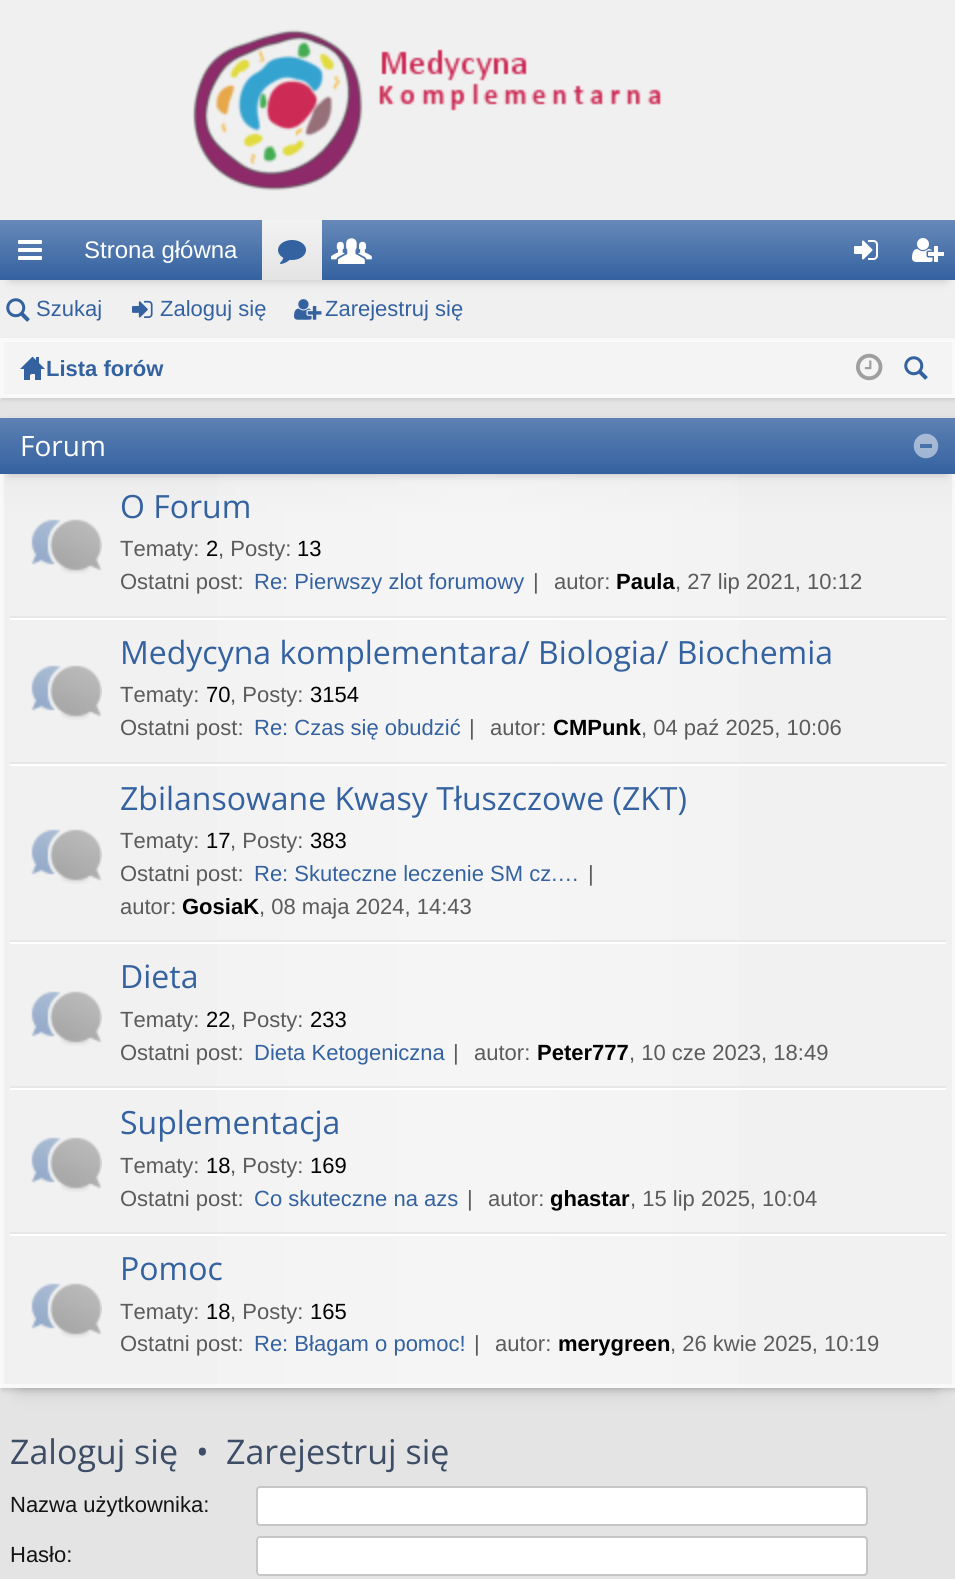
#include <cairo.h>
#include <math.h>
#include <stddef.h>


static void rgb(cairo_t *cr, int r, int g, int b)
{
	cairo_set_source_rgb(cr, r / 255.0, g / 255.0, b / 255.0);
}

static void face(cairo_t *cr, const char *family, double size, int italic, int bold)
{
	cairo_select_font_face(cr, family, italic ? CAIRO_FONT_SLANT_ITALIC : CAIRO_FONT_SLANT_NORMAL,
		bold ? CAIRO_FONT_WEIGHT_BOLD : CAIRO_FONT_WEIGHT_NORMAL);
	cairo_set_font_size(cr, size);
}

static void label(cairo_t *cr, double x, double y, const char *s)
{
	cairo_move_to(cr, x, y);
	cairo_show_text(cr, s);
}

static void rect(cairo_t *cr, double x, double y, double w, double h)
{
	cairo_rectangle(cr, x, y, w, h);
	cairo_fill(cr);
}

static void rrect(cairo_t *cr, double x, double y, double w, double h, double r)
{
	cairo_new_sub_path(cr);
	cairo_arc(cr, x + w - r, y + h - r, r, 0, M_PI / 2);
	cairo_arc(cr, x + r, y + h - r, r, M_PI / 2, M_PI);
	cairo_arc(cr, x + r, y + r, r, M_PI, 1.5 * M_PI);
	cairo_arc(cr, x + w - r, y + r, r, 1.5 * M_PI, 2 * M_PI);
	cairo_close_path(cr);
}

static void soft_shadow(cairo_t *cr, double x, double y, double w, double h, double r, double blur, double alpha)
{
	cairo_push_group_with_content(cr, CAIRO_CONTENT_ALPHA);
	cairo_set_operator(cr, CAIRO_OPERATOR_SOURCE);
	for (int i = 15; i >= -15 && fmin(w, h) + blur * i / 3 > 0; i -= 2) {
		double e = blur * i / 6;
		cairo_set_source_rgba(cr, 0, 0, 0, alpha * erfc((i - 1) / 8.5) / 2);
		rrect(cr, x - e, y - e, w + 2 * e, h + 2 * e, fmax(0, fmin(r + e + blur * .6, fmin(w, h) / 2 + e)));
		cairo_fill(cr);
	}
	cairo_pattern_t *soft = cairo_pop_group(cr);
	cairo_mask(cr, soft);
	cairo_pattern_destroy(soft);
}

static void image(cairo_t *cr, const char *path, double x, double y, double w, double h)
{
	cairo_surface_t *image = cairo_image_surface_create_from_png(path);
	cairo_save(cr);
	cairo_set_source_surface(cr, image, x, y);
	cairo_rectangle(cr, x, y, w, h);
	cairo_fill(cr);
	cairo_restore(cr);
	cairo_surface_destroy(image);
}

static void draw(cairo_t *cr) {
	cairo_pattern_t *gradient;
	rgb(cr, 240, 240, 240);
	cairo_paint(cr);
	image(cr, "image0.png", 192, 29, 470, 162);
	rgb(cr, 0, 0, 0);
	soft_shadow(cr, 10, 240, 936, 40, 0, 5, 0.2);
	gradient = cairo_pattern_create_linear(478, 220, 478, 280);
	cairo_pattern_add_color_stop_rgba(gradient, 0, 0.404, 0.537, 0.722, 1);
	cairo_pattern_add_color_stop_rgba(gradient, 1, 0.204, 0.384, 0.627, 1);
	cairo_set_source(cr, gradient);
	cairo_pattern_destroy(gradient);
	rect(cr, 0, 220, 955, 60);
	image(cr, "image1.png", 18, 240, 24, 20);
	face(cr, "Liberation Sans", 24, 0, 0);
	rgb(cr, 255, 255, 255);
	label(cr, 84, 258, "Strona główna");
	gradient = cairo_pattern_create_linear(292, 220, 292, 280);
	cairo_pattern_add_color_stop_rgba(gradient, 0, 0.949, 0.949, 0.949, 1);
	cairo_pattern_add_color_stop_rgba(gradient, 1, 0.894, 0.894, 0.894, 1);
	cairo_set_source(cr, gradient);
	cairo_pattern_destroy(gradient);
	rect(cr, 262, 220, 60, 60);
	image(cr, "image2.png", 278, 240, 28, 24);
	image(cr, "image3.png", 331, 238, 41, 26);
	image(cr, "image4.png", 854, 240, 24, 20);
	image(cr, "image5.png", 912, 238, 32, 24);
	image(cr, "image6.png", 6, 298, 24, 24);
	face(cr, "Liberation Sans", 22, 0, 0);
	rgb(cr, 52, 98, 160);
	label(cr, 36, 316, "Szukaj");
	image(cr, "image7.png", 132, 300, 21, 18);
	label(cr, 160, 316, "Zaloguj się");
	image(cr, "image8.png", 294, 299, 28, 21);
	label(cr, 325, 316, "Zarejestruj się");
	rgb(cr, 228, 228, 228);
	rect(cr, 0, 398, 955, 1181);
	rgb(cr, 0, 0, 0);
	soft_shadow(cr, 2, 340, 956, 60, 0, 2, 0.1);
	rgb(cr, 244, 244, 244);
	cairo_rectangle(cr, 3, 341, 950, 54);
	cairo_fill_preserve(cr);
	rgb(cr, 250, 250, 250);
	cairo_stroke(cr);
	cairo_rectangle(cr, 1, 339, 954, 58);
	rgb(cr, 249, 249, 249);
	cairo_stroke(cr);
	image(cr, "image10.png", 30, 374, 2, 1);
	image(cr, "image9.png", 20, 356, 25, 24);
	face(cr, "Liberation Sans", 22, 0, 1);
	rgb(cr, 52, 98, 160);
	label(cr, 46, 376, "Lista forów");
	image(cr, "image11.png", 856, 353, 27, 28);
	image(cr, "image12.png", 904, 356, 24, 24);
	rgb(cr, 0, 0, 0);
	soft_shadow(cr, 20, 458, 916, 930, 0, 10, 0.2);
	soft_shadow(cr, 2, 420, 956, 970, 0, 3, 0.15);
	gradient = cairo_pattern_create_linear(478, 420, 478, 1386);
	cairo_pattern_add_color_stop_rgba(gradient, 0, 0.918, 0.918, 0.918, 1);
	cairo_pattern_add_color_stop_rgba(gradient, 0.02, 0.91, 0.91, 0.91, 1);
	cairo_pattern_add_color_stop_rgba(gradient, 0.1, 0.945, 0.945, 0.945, 1);
	cairo_set_source(cr, gradient);
	cairo_pattern_destroy(gradient);
	rect(cr, 2, 474, 952, 912);
	gradient = cairo_pattern_create_linear(2, 903, 954, 903);
	cairo_pattern_add_color_stop_rgba(gradient, 0, 1, 1, 1, 0);
	cairo_pattern_add_color_stop_rgba(gradient, 0.5, 1, 1, 1, 0.3);
	cairo_pattern_add_color_stop_rgba(gradient, 1, 1, 1, 1, 0);
	cairo_set_source(cr, gradient);
	cairo_pattern_destroy(gradient);
	rect(cr, 217, 474, 522, 912);
	cairo_rectangle(cr, 3, 421, 950, 964);
	cairo_set_source_rgba(cr, 1, 1, 1, 0.5);
	cairo_stroke(cr);
	cairo_rectangle(cr, 1, 419, 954, 968);
	rgb(cr, 249, 249, 249);
	cairo_stroke(cr);
	rgb(cr, 0, 0, 0);
	soft_shadow(cr, 10, 438, 936, 36, 0, 5, 0.2);
	gradient = cairo_pattern_create_linear(478, 418, 478, 474);
	cairo_pattern_add_color_stop_rgba(gradient, 0, 0.365, 0.506, 0.702, 1);
	cairo_pattern_add_color_stop_rgba(gradient, 1, 0.204, 0.384, 0.627, 1);
	cairo_set_source(cr, gradient);
	cairo_pattern_destroy(gradient);
	rect(cr, 0, 418, 955, 56);
	face(cr, "Open Sans", 28, 0, 0);
	rgb(cr, 255, 255, 255);
	label(cr, 20, 456, "Forum");
	image(cr, "image13.png", 913, 433, 26, 26);
	rgb(cr, 231, 231, 231);
	rect(cr, 10, 616, 936, 2);
	image(cr, "image14.png", 31, 519, 71, 55);
	face(cr, "Open Sans", 32, 0, 0);
	rgb(cr, 52, 98, 160);
	label(cr, 120, 518, "O Forum");
	face(cr, "Liberation Sans", 22, 0, 0);
	rgb(cr, 91, 91, 91);
	label(cr, 120, 556, "Tematy:");
	rgb(cr, 0, 0, 0);
	label(cr, 206, 556, "2");
	rgb(cr, 91, 91, 91);
	label(cr, 218, 556, ", Posty:");
	rgb(cr, 0, 0, 0);
	label(cr, 297, 556, "13");
	rgb(cr, 91, 91, 91);
	label(cr, 120, 589, "Ostatni post:");
	rgb(cr, 52, 98, 160);
	label(cr, 254, 589, "Re: Pierwszy zlot forumowy");
	rgb(cr, 91, 91, 91);
	label(cr, 533, 589, "|");
	label(cr, 554, 589, "autor:");
	face(cr, "Liberation Sans", 22, 0, 1);
	rgb(cr, 0, 0, 0);
	label(cr, 616, 589, "Paula");
	face(cr, "Liberation Sans", 22, 0, 0);
	rgb(cr, 91, 91, 91);
	label(cr, 675, 589, ", 27 lip 2021, 10:12");
	rgb(cr, 255, 255, 255);
	rect(cr, 10, 618, 936, 2);
	rgb(cr, 231, 231, 231);
	rect(cr, 10, 762, 936, 2);
	image(cr, "image14.png", 31, 665, 71, 55);
	face(cr, "Open Sans", 32, 0, 0);
	rgb(cr, 52, 98, 160);
	label(cr, 120, 664, "Medycyna komplementara/ Biologia/ Biochemia");
	face(cr, "Liberation Sans", 22, 0, 0);
	rgb(cr, 91, 91, 91);
	label(cr, 120, 702, "Tematy:");
	rgb(cr, 0, 0, 0);
	label(cr, 206, 702, "70");
	rgb(cr, 91, 91, 91);
	label(cr, 230, 702, ", Posty:");
	rgb(cr, 0, 0, 0);
	label(cr, 310, 702, "3154");
	rgb(cr, 91, 91, 91);
	label(cr, 120, 735, "Ostatni post:");
	rgb(cr, 52, 98, 160);
	label(cr, 254, 735, "Re: Czas się obudzić");
	rgb(cr, 91, 91, 91);
	label(cr, 469, 735, "|");
	label(cr, 490, 735, "autor:");
	face(cr, "Liberation Sans", 22, 0, 1);
	rgb(cr, 0, 0, 0);
	label(cr, 553, 735, "CMPunk");
	face(cr, "Liberation Sans", 22, 0, 0);
	rgb(cr, 91, 91, 91);
	label(cr, 641, 735, ", 04 paź 2025, 10:06");
	rgb(cr, 255, 255, 255);
	rect(cr, 10, 764, 936, 2);
	rgb(cr, 231, 231, 231);
	rect(cr, 10, 940, 936, 2);
	image(cr, "image14.png", 31, 829, 71, 55);
	face(cr, "Open Sans", 32, 0, 0);
	rgb(cr, 52, 98, 160);
	label(cr, 120, 810, "Zbilansowane Kwasy Tłuszczowe (ZKT)");
	face(cr, "Liberation Sans", 22, 0, 0);
	rgb(cr, 91, 91, 91);
	label(cr, 120, 848, "Tematy:");
	rgb(cr, 0, 0, 0);
	label(cr, 206, 848, "17");
	rgb(cr, 91, 91, 91);
	label(cr, 230, 848, ", Posty:");
	rgb(cr, 0, 0, 0);
	label(cr, 310, 848, "383");
	rgb(cr, 91, 91, 91);
	label(cr, 120, 881, "Ostatni post:");
	rgb(cr, 52, 98, 160);
	label(cr, 254, 881, "Re: Skuteczne leczenie SM cz.…");
	rgb(cr, 91, 91, 91);
	label(cr, 588, 881, "|");
	label(cr, 120, 914, "autor:");
	face(cr, "Liberation Sans", 22, 0, 1);
	rgb(cr, 0, 0, 0);
	label(cr, 182, 914, "GosiaK");
	face(cr, "Liberation Sans", 22, 0, 0);
	rgb(cr, 91, 91, 91);
	label(cr, 259, 914, ", 08 maja 2024, 14:43");
	rgb(cr, 255, 255, 255);
	rect(cr, 10, 942, 936, 2);
	rgb(cr, 231, 231, 231);
	rect(cr, 10, 1086, 936, 2);
	image(cr, "image14.png", 31, 991, 71, 55);
	face(cr, "Open Sans", 32, 0, 0);
	rgb(cr, 52, 98, 160);
	label(cr, 120, 988, "Dieta");
	face(cr, "Liberation Sans", 22, 0, 0);
	rgb(cr, 91, 91, 91);
	label(cr, 120, 1027, "Tematy:");
	rgb(cr, 0, 0, 0);
	label(cr, 206, 1027, "22");
	rgb(cr, 91, 91, 91);
	label(cr, 230, 1027, ", Posty:");
	rgb(cr, 0, 0, 0);
	label(cr, 310, 1027, "233");
	rgb(cr, 91, 91, 91);
	label(cr, 120, 1060, "Ostatni post:");
	rgb(cr, 52, 98, 160);
	label(cr, 254, 1060, "Dieta Ketogeniczna");
	rgb(cr, 91, 91, 91);
	label(cr, 453, 1060, "|");
	label(cr, 474, 1060, "autor:");
	face(cr, "Liberation Sans", 22, 0, 1);
	rgb(cr, 0, 0, 0);
	label(cr, 537, 1060, "Peter777");
	face(cr, "Liberation Sans", 22, 0, 0);
	rgb(cr, 91, 91, 91);
	label(cr, 629, 1060, ", 10 cze 2023, 18:49");
	rgb(cr, 255, 255, 255);
	rect(cr, 10, 1088, 936, 2);
	rgb(cr, 231, 231, 231);
	rect(cr, 10, 1232, 936, 2);
	image(cr, "image14.png", 31, 1137, 71, 55);
	face(cr, "Open Sans", 32, 0, 0);
	rgb(cr, 52, 98, 160);
	label(cr, 120, 1134, "Suplementacja");
	face(cr, "Liberation Sans", 22, 0, 0);
	rgb(cr, 91, 91, 91);
	label(cr, 120, 1173, "Tematy:");
	rgb(cr, 0, 0, 0);
	label(cr, 206, 1173, "18");
	rgb(cr, 91, 91, 91);
	label(cr, 230, 1173, ", Posty:");
	rgb(cr, 0, 0, 0);
	label(cr, 310, 1173, "169");
	rgb(cr, 91, 91, 91);
	label(cr, 120, 1206, "Ostatni post:");
	rgb(cr, 52, 98, 160);
	label(cr, 254, 1206, "Co skuteczne na azs");
	rgb(cr, 91, 91, 91);
	label(cr, 467, 1206, "|");
	label(cr, 488, 1206, "autor:");
	face(cr, "Liberation Sans", 22, 0, 1);
	rgb(cr, 0, 0, 0);
	label(cr, 550, 1206, "ghastar");
	face(cr, "Liberation Sans", 22, 0, 0);
	rgb(cr, 91, 91, 91);
	label(cr, 630, 1206, ", 15 lip 2025, 10:04");
	rgb(cr, 255, 255, 255);
	rect(cr, 10, 1234, 936, 2);
	image(cr, "image14.png", 31, 1283, 71, 55);
	face(cr, "Open Sans", 32, 0, 0);
	rgb(cr, 52, 98, 160);
	label(cr, 120, 1280, "Pomoc");
	face(cr, "Liberation Sans", 22, 0, 0);
	rgb(cr, 91, 91, 91);
	label(cr, 120, 1319, "Tematy:");
	rgb(cr, 0, 0, 0);
	label(cr, 206, 1319, "18");
	rgb(cr, 91, 91, 91);
	label(cr, 230, 1319, ", Posty:");
	rgb(cr, 0, 0, 0);
	label(cr, 310, 1319, "165");
	rgb(cr, 91, 91, 91);
	label(cr, 120, 1351, "Ostatni post:");
	rgb(cr, 52, 98, 160);
	label(cr, 254, 1351, "Re: Błagam o pomoc!");
	rgb(cr, 91, 91, 91);
	label(cr, 474, 1351, "|");
	label(cr, 495, 1351, "autor:");
	face(cr, "Liberation Sans", 22, 0, 1);
	rgb(cr, 0, 0, 0);
	label(cr, 558, 1351, "merygreen");
	face(cr, "Liberation Sans", 22, 0, 0);
	rgb(cr, 91, 91, 91);
	label(cr, 670, 1351, ", 26 kwie 2025, 10:19");
	face(cr, "Open Sans", 34, 0, 0);
	rgb(cr, 60, 77, 101);
	label(cr, 10, 1464, "Zaloguj się");
	label(cr, 196, 1464, "•");
	label(cr, 226, 1464, "Zarejestruj się");
	face(cr, "Liberation Sans", 22, 0, 0);
	rgb(cr, 20, 20, 20);
	label(cr, 10, 1512, "Nazwa użytkownika:");
	rgb(cr, 255, 255, 255);
	rrect(cr, 257, 1487, 610, 38, 3);
	cairo_fill_preserve(cr);
	rgb(cr, 198, 198, 198);
	cairo_stroke(cr);
	rgb(cr, 20, 20, 20);
	label(cr, 10, 1562, "Hasło:");
	rgb(cr, 255, 255, 255);
	rrect(cr, 257, 1537, 610, 38, 3);
	cairo_fill_preserve(cr);
	rgb(cr, 198, 198, 198);
	cairo_stroke(cr);
}

int main(void) {
	cairo_surface_t *surface = cairo_image_surface_create(CAIRO_FORMAT_RGB24, 955, 1579);
	cairo_t *cr = cairo_create(surface);
	cairo_font_options_t *options = cairo_font_options_create();
	cairo_font_options_set_hint_metrics(options, CAIRO_HINT_METRICS_OFF);
	cairo_font_options_set_hint_style(options, CAIRO_HINT_STYLE_NONE);
	cairo_set_font_options(cr, options);
	cairo_set_miter_limit(cr, 4);
	draw(cr);
	cairo_surface_write_to_png(surface, "render.png");
	cairo_font_options_destroy(options);
	cairo_destroy(cr);
	cairo_surface_destroy(surface);
	return 0;
}
